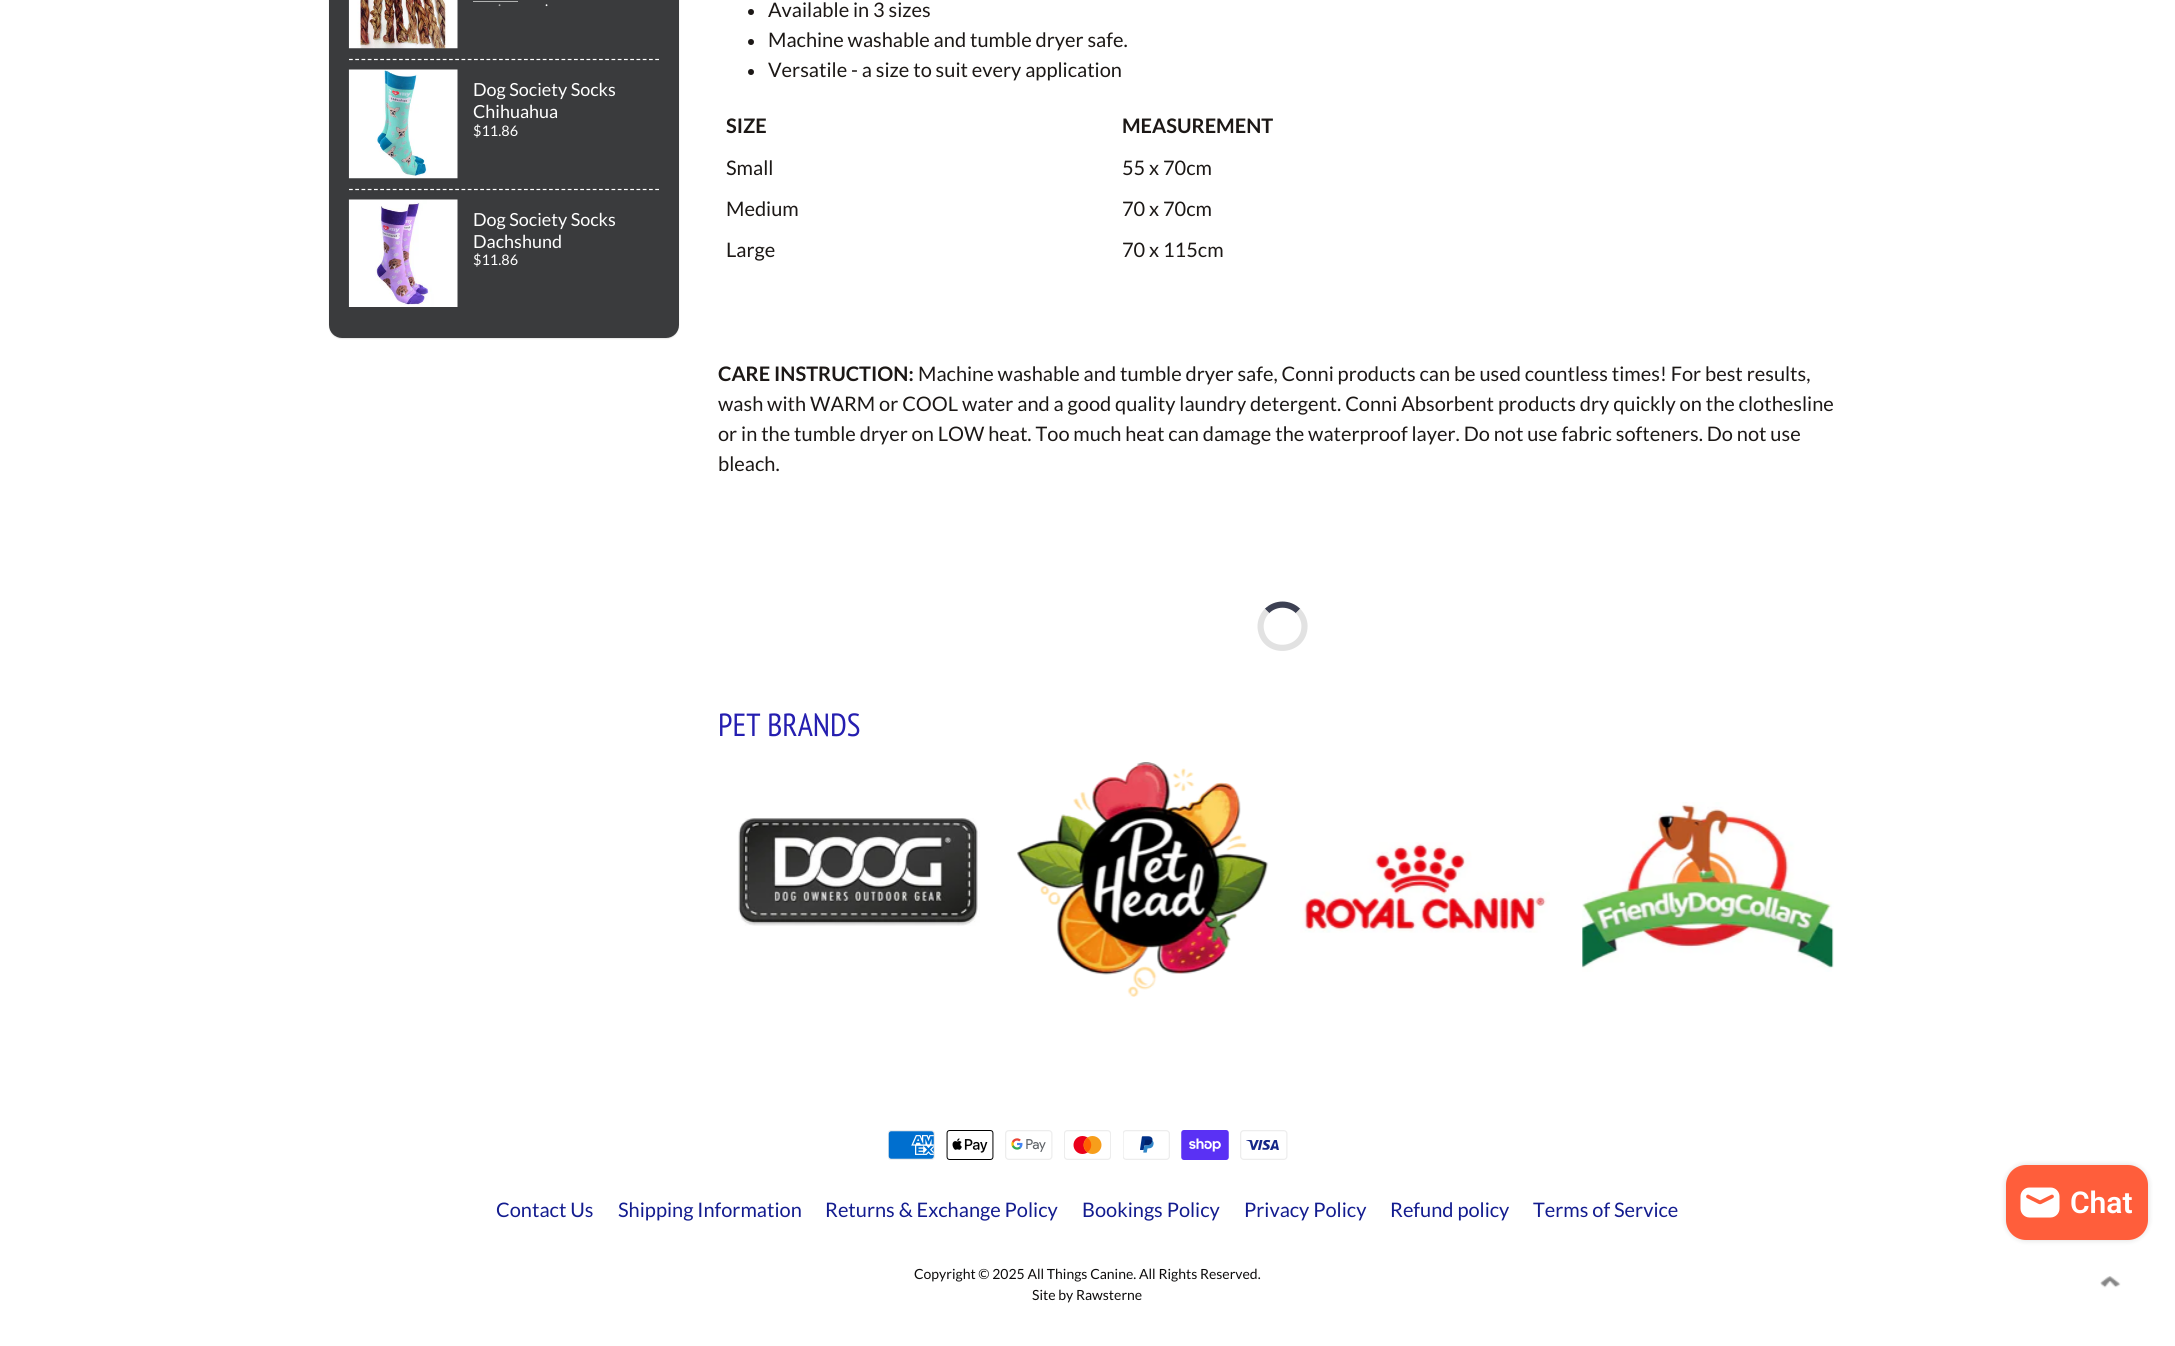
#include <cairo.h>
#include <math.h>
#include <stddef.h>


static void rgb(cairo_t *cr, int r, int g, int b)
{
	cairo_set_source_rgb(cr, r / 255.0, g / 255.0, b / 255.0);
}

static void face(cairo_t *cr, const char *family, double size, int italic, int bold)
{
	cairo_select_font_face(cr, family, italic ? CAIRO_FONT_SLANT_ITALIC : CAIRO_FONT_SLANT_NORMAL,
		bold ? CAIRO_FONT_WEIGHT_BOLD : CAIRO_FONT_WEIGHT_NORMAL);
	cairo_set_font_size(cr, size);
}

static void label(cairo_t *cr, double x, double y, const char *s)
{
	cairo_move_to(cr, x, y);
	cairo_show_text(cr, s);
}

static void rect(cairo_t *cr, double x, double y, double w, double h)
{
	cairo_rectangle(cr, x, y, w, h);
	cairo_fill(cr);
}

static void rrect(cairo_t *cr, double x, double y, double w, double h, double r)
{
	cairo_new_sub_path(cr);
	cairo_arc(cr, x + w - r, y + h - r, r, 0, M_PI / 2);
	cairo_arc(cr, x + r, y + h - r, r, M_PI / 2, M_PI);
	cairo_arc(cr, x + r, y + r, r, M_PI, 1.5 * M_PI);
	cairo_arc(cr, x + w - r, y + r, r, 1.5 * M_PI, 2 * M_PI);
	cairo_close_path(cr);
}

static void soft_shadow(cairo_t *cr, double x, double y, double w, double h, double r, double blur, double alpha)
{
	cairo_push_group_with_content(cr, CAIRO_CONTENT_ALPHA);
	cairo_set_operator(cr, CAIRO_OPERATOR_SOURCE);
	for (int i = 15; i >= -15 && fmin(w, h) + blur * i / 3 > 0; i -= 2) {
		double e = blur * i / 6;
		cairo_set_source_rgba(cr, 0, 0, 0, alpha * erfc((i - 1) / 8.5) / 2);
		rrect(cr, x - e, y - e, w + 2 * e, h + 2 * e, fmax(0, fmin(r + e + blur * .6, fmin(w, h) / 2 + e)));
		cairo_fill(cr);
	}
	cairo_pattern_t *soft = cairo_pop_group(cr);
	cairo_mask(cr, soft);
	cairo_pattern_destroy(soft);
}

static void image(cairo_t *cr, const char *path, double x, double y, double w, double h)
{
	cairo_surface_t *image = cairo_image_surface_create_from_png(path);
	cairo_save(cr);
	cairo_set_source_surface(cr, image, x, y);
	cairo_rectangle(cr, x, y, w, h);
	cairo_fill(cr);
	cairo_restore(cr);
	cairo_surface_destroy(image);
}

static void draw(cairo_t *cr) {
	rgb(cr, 255, 255, 255);
	cairo_paint(cr);
	rgb(cr, 0, 0, 0);
	soft_shadow(cr, 329, -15, 350, 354, 13, 0.5, 0.1);
	rgb(cr, 58, 59, 61);
	rrect(cr, 329, -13, 350, 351, 13);
	cairo_fill(cr);
	image(cr, "image0.png", 348, 0, 110, 49);
	face(cr, "Lato", 14.5, 0, 0);
	rgb(cr, 176, 177, 177);
	label(cr, 498, 6, ".");
	rect(cr, 473, 1, 45, 1);
	rgb(cr, 255, 255, 255);
	label(cr, 545, 6, ".");
	cairo_new_path(cr);
	cairo_move_to(cr, 349, 59.5);
	cairo_line_to(cr, 659, 59.5);
	cairo_set_line_width(cr, 1.2);
	cairo_set_dash(cr, (double[]){3.75, 2.5}, 2, 0);
	cairo_stroke(cr);
	image(cr, "image1.png", 348, 69, 110, 110);
	face(cr, "Lato", 18, 0, 0);
	label(cr, 473, 96, "Dog Society Socks");
	label(cr, 473, 118, "Chihuahua");
	face(cr, "Lato", 14.5, 0, 0);
	label(cr, 473, 136, "$11.86");
	cairo_new_path(cr);
	cairo_move_to(cr, 349, 189.5);
	cairo_line_to(cr, 659, 189.5);
	cairo_stroke(cr);
	image(cr, "image2.png", 348, 199, 110, 108);
	face(cr, "Lato", 18, 0, 0);
	label(cr, 473, 226, "Dog Society Socks");
	label(cr, 473, 248, "Dachshund");
	face(cr, "Lato", 14.5, 0, 0);
	label(cr, 473, 265, "$11.86");
	rgb(cr, 28, 24, 22);
	cairo_new_path(cr);
	cairo_arc(cr, 751, 12, 3, 0, 2 * M_PI);
	cairo_fill(cr);
	face(cr, "Lato", 20, 0, 0);
	label(cr, 768, 17, "Available in 3 sizes");
	cairo_new_path(cr);
	cairo_arc(cr, 751, 42, 3, 0, 2 * M_PI);
	cairo_fill(cr);
	label(cr, 768, 47, "Machine washable and tumble dryer safe.");
	cairo_new_path(cr);
	cairo_arc(cr, 751, 72, 3, 0, 2 * M_PI);
	cairo_fill(cr);
	label(cr, 768, 77, "Versatile - a size to suit every application");
	face(cr, "Lato", 20, 0, 1);
	label(cr, 726, 133, "SIZE");
	label(cr, 1122, 133, "MEASUREMENT");
	face(cr, "Lato", 20, 0, 0);
	label(cr, 726, 175, "Small");
	label(cr, 1122, 175, "55 x 70cm");
	label(cr, 726, 216, "Medium");
	label(cr, 1122, 216, "70 x 70cm");
	label(cr, 726, 257, "Large");
	label(cr, 1122, 257, "70 x 115cm");
	face(cr, "Lato", 20, 0, 1);
	label(cr, 718, 381, "CARE INSTRUCTION:");
	face(cr, "Lato", 20, 0, 0);
	label(cr, 918, 381, "Machine washable and tumble dryer safe, Conni products can be used countless times! For best results,");
	label(cr, 718, 411, "wash with WARM or COOL water and a good quality laundry detergent. Conni Absorbent products dry quickly on the clothesline");
	label(cr, 718, 441, "or in the tumble dryer on LOW heat. Too much heat can damage the waterproof layer. Do not use fabric softeners. Do not use");
	label(cr, 718, 471, "bleach.");
	cairo_new_path(cr);
	cairo_move_to(cr, 1267, 611);
	cairo_curve_to(cr, 1275.5, 602.5, 1289.5, 602.5, 1298, 611);
	rgb(cr, 61, 65, 83);
	cairo_set_line_width(cr, 6.2);
	cairo_set_dash(cr, NULL, 0, 0);
	cairo_stroke(cr);
	cairo_new_path(cr);
	cairo_move_to(cr, 1298, 611);
	cairo_curve_to(cr, 1302, 615, 1304.5, 620.5, 1304.5, 626);
	cairo_curve_to(cr, 1304.5, 652.5, 1266, 656, 1261, 630.5);
	cairo_curve_to(cr, 1259.5, 623.5, 1262, 616, 1267, 611);
	rgb(cr, 226, 226, 226);
	cairo_stroke(cr);
	face(cr, "PT Sans Narrow", 32, 0, 0);
	rgb(cr, 37, 30, 176);
	label(cr, 718, 736, "PET BRANDS");
	image(cr, "image3.png", 738, 818, 242, 108);
	image(cr, "image4.png", 1017, 762, 252, 235);
	image(cr, "image5.png", 1300, 842, 250, 91);
	image(cr, "image6.png", 1582, 802, 252, 170);
	image(cr, "image7.png", 888, 1130, 47, 30);
	image(cr, "image8.png", 946, 1130, 48, 30);
	image(cr, "image9.png", 1005, 1130, 48, 30);
	image(cr, "image10.png", 1064, 1130, 47, 30);
	image(cr, "image11.png", 1123, 1130, 47, 30);
	image(cr, "image12.png", 1181, 1130, 48, 30);
	image(cr, "image13.png", 1240, 1130, 48, 30);
	face(cr, "Lato", 20, 0, 0);
	rgb(cr, 19, 28, 143);
	label(cr, 496, 1217, "Contact Us");
	label(cr, 618, 1217, "Shipping Information");
	label(cr, 825, 1217, "Returns & Exchange Policy");
	label(cr, 1082, 1217, "Bookings Policy");
	label(cr, 1244, 1217, "Privacy Policy");
	label(cr, 1390, 1217, "Refund policy");
	label(cr, 1533, 1217, "Terms of Service");
	face(cr, "Lato", 14, 0, 0);
	rgb(cr, 13, 12, 12);
	label(cr, 914, 1279, "Copyright © 2025 All Things Canine. All Rights Reserved.");
	label(cr, 1032, 1300, "Site by Rawsterne");
	image(cr, "image14.png", 2100, 1276, 21, 12);
	rgb(cr, 0, 0, 0);
	soft_shadow(cr, 2006, 1165, 142, 75, 20, 3, 0.15);
	rgb(cr, 255, 94, 59);
	rrect(cr, 2006, 1165, 142, 75, 20);
	cairo_fill(cr);
	image(cr, "image15.png", 2020, 1187, 40, 31);
	face(cr, "Roboto SemiBold", 30, 0, 0);
	rgb(cr, 255, 255, 255);
	label(cr, 2070, 1213, "Chat");
}

int main(void) {
	cairo_surface_t *surface = cairo_image_surface_create(CAIRO_FORMAT_RGB24, 2175, 1346);
	cairo_t *cr = cairo_create(surface);
	cairo_font_options_t *options = cairo_font_options_create();
	cairo_font_options_set_hint_metrics(options, CAIRO_HINT_METRICS_OFF);
	cairo_font_options_set_hint_style(options, CAIRO_HINT_STYLE_NONE);
	cairo_set_font_options(cr, options);
	cairo_set_miter_limit(cr, 4);
	draw(cr);
	cairo_surface_write_to_png(surface, "render.png");
	cairo_font_options_destroy(options);
	cairo_destroy(cr);
	cairo_surface_destroy(surface);
	return 0;
}
